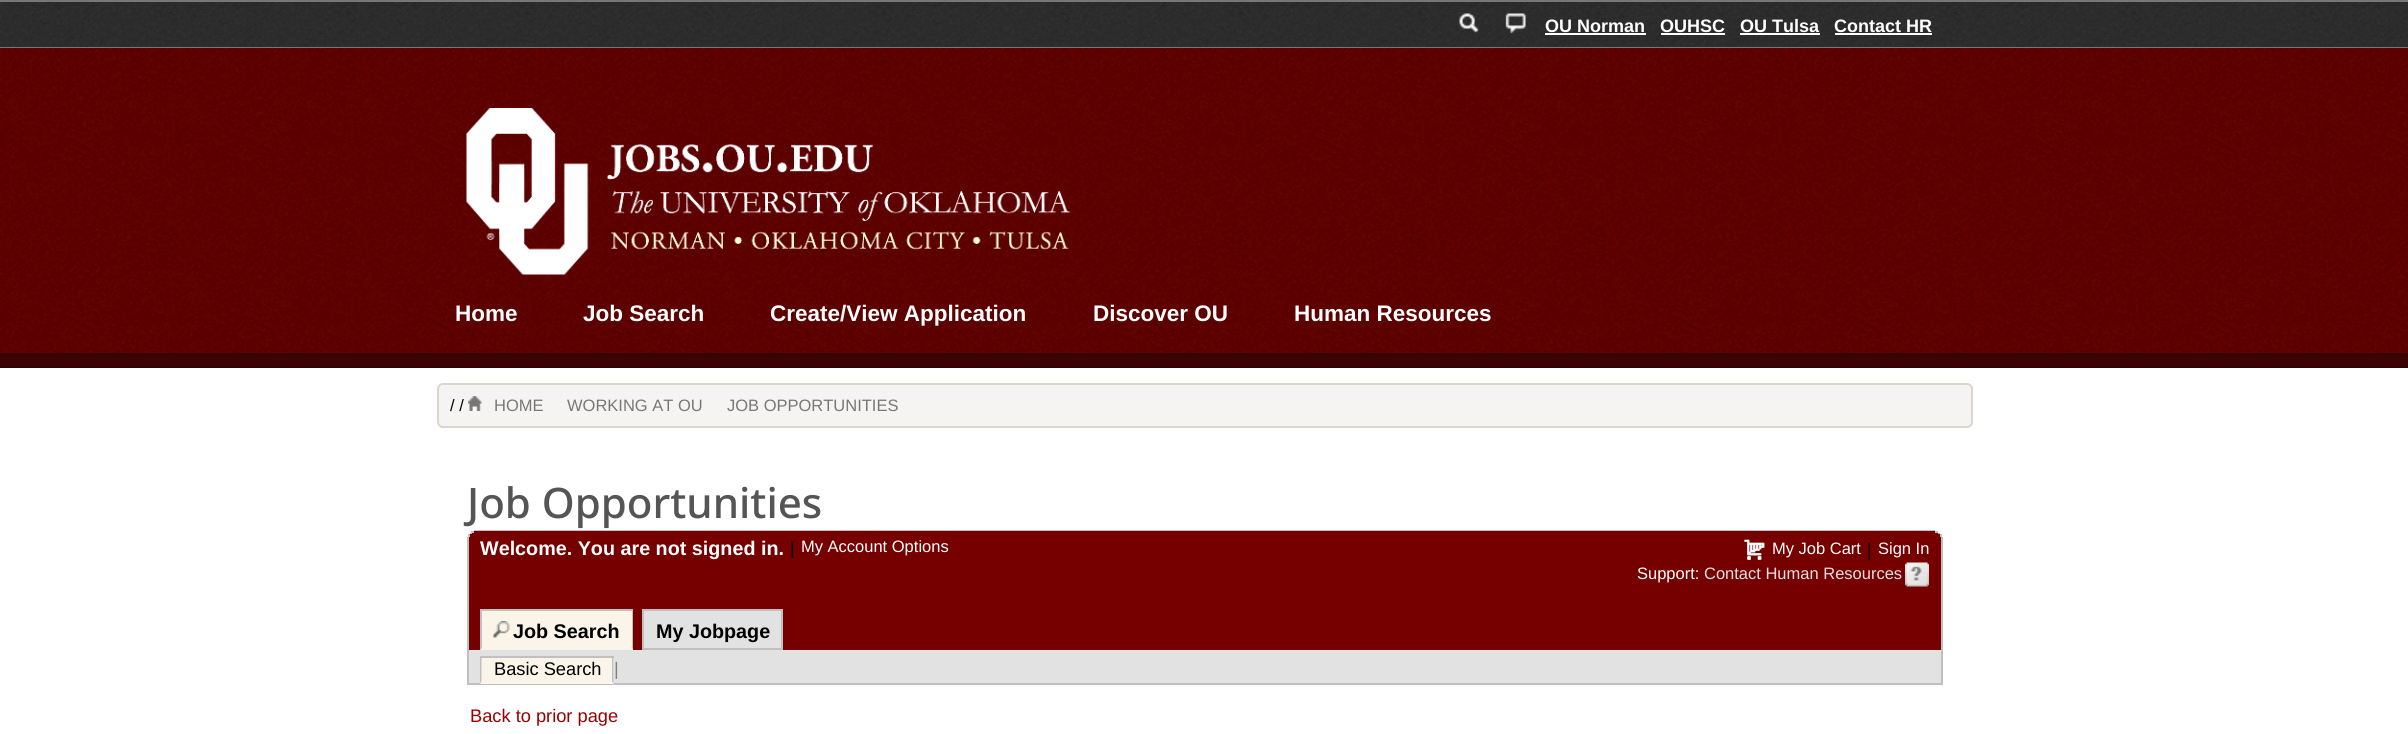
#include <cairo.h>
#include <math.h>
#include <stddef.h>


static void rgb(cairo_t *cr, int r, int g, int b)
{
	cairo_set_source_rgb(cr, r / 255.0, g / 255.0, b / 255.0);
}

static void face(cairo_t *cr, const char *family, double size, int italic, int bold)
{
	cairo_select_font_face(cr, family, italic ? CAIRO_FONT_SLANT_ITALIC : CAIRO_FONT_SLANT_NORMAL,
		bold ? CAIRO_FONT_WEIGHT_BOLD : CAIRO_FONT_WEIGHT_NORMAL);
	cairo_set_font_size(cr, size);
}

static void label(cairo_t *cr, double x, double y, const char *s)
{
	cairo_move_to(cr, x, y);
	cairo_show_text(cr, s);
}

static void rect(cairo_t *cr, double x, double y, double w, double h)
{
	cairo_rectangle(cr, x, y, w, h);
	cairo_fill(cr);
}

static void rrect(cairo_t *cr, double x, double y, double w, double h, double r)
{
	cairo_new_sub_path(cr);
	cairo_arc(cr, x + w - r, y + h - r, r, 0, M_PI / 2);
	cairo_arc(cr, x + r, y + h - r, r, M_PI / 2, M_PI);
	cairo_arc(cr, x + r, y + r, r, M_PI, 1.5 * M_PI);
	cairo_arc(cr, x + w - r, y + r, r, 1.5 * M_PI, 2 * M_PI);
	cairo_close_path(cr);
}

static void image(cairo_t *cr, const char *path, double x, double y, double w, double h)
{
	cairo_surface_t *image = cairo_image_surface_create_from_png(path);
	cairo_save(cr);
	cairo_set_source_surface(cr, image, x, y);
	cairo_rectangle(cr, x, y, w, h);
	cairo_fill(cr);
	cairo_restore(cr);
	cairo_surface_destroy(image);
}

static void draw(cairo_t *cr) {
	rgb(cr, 255, 255, 255);
	cairo_paint(cr);
	image(cr, "image0.png", 0, 2, 2408, 45);
	rgb(cr, 119, 119, 119);
	rect(cr, 0, 47, 2408, 1);
	rect(cr, 0, 0, 2408, 2);
	image(cr, "image1.png", 1459, 13, 20, 20);
	image(cr, "image2.png", 1505, 13, 21, 21);
	face(cr, "Liberation Sans", 18, 0, 1);
	rgb(cr, 255, 255, 255);
	label(cr, 1545, 32, "OU Norman");
	rect(cr, 1545, 33, 101, 2);
	label(cr, 1660, 32, "OUHSC");
	rect(cr, 1661, 33, 64, 2);
	label(cr, 1740, 32, "OU Tulsa");
	rect(cr, 1740, 33, 80, 2);
	label(cr, 1834, 32, "Contact HR");
	rect(cr, 1835, 33, 97, 2);
	image(cr, "image3.png", 0, 48, 2408, 305);
	image(cr, "image4.png", 466, 108, 604, 167);
	face(cr, "Liberation Sans", 22.5, 0, 1);
	label(cr, 455, 321, "Home");
	label(cr, 583, 321, "Job Search");
	label(cr, 770, 321, "Create/View Application");
	label(cr, 1093, 321, "Discover OU");
	label(cr, 1294, 321, "Human Resources");
	rgb(cr, 62, 2, 4);
	rect(cr, 0, 355, 2408, 11);
	rgb(cr, 48, 2, 4);
	rect(cr, 0, 353, 2408, 2);
	rect(cr, 0, 366, 2408, 2);
	rgb(cr, 245, 244, 242);
	rrect(cr, 438, 384, 1534, 43, 5);
	cairo_fill_preserve(cr);
	rgb(cr, 218, 214, 206);
	cairo_stroke(cr);
	face(cr, "Liberation Sans", 16.5, 0, 0);
	rgb(cr, 0, 0, 0);
	label(cr, 450, 411, "/ /");
	image(cr, "image5.png", 468, 396, 14, 15);
	rgb(cr, 119, 119, 119);
	label(cr, 494, 411, "HOME");
	label(cr, 567, 411, "WORKING AT OU");
	label(cr, 727, 411, "JOB OPPORTUNITIES");
	face(cr, "Noto Sans Medium", 42, 0, 0);
	rgb(cr, 85, 85, 85);
	label(cr, 467, 518, "Job Opportunities");
	rgb(cr, 192, 192, 192);
	rect(cr, 474, 530, 1461, 1);
	rgb(cr, 118, 0, 0);
	rect(cr, 471, 531, 1467, 2);
	rgb(cr, 192, 192, 192);
	rect(cr, 1935, 531, 3, 2);
	rect(cr, 471, 531, 3, 2);
	rgb(cr, 118, 0, 0);
	rect(cr, 470, 533, 1470, 1);
	rgb(cr, 192, 192, 192);
	rect(cr, 1938, 533, 2, 1);
	rect(cr, 470, 533, 2, 1);
	rgb(cr, 118, 0, 0);
	rect(cr, 468, 534, 1473, 3);
	rgb(cr, 192, 192, 192);
	rect(cr, 1940, 534, 2, 3);
	rect(cr, 468, 534, 2, 3);
	rgb(cr, 118, 0, 0);
	rect(cr, 469, 537, 1472, 113);
	rgb(cr, 192, 192, 192);
	rect(cr, 1941, 537, 2, 147);
	rect(cr, 467, 537, 2, 113);
	face(cr, "Liberation Sans", 19.75, 0, 1);
	rgb(cr, 255, 255, 255);
	label(cr, 480, 555, "Welcome. You are not signed in.");
	face(cr, "Liberation Sans", 18.25, 0, 0);
	rgb(cr, 0, 0, 0);
	label(cr, 790, 554, "|");
	face(cr, "Liberation Sans", 16.5, 0, 0);
	rgb(cr, 255, 255, 255);
	label(cr, 801, 552, "My Account Options");
	image(cr, "image6.png", 1744, 539, 21, 21);
	image(cr, "image7.png", 1744, 539, 21, 21);
	label(cr, 1772, 554, "My Job Cart");
	face(cr, "Liberation Sans", 18.25, 0, 0);
	rgb(cr, 0, 0, 0);
	label(cr, 1867, 556, "|");
	face(cr, "Liberation Sans", 16.5, 0, 0);
	rgb(cr, 255, 255, 255);
	label(cr, 1878, 554, "Sign In");
	label(cr, 1637, 579, "Support:");
	rgb(cr, 226, 226, 226);
	label(cr, 1704, 579, "Contact Human Resources");
	image(cr, "image8.png", 1905, 562, 24, 25);
	rgb(cr, 250, 245, 232);
	rect(cr, 480, 611, 153, 39);
	rgb(cr, 192, 192, 192);
	rect(cr, 480, 609, 153, 2);
	cairo_new_path(cr);
	cairo_move_to(cr, 633, 609);
	cairo_line_to(cr, 633, 650);
	cairo_line_to(cr, 632, 648);
	cairo_line_to(cr, 632, 610);
	cairo_close_path(cr);
	cairo_fill(cr);
	cairo_new_path(cr);
	cairo_move_to(cr, 480, 650);
	cairo_line_to(cr, 480, 609);
	cairo_line_to(cr, 482, 610);
	cairo_line_to(cr, 482, 648);
	cairo_close_path(cr);
	cairo_fill(cr);
	image(cr, "image9.png", 493, 621, 18, 17);
	face(cr, "Liberation Sans", 19.75, 0, 1);
	rgb(cr, 0, 0, 0);
	label(cr, 513, 638, "Job Search");
	rgb(cr, 226, 226, 226);
	cairo_rectangle(cr, 643, 610, 139, 39);
	cairo_fill_preserve(cr);
	rgb(cr, 192, 192, 192);
	cairo_stroke(cr);
	rgb(cr, 0, 0, 0);
	label(cr, 656, 638, "My Jobpage");
	rgb(cr, 226, 226, 226);
	rect(cr, 469, 650, 1472, 33);
	rgb(cr, 192, 192, 192);
	rect(cr, 467, 683, 1476, 2);
	rect(cr, 467, 650, 2, 34);
	rgb(cr, 250, 245, 232);
	rect(cr, 480, 658, 134, 26);
	face(cr, "Liberation Sans", 18.25, 0, 0);
	rgb(cr, 0, 0, 0);
	label(cr, 494, 675, "Basic Search");
	rgb(cr, 192, 192, 192);
	rect(cr, 480, 656, 134, 2);
	cairo_new_path(cr);
	cairo_move_to(cr, 613.5, 655.5);
	cairo_line_to(cr, 613.5, 684);
	cairo_line_to(cr, 612, 681);
	cairo_line_to(cr, 612, 657);
	cairo_close_path(cr);
	cairo_fill(cr);
	cairo_new_path(cr);
	cairo_move_to(cr, 480, 684);
	cairo_line_to(cr, 480, 655.5);
	cairo_line_to(cr, 481.5, 657);
	cairo_line_to(cr, 481.5, 681);
	cairo_close_path(cr);
	cairo_fill(cr);
	rgb(cr, 128, 128, 128);
	label(cr, 614, 675, "|");
	rgb(cr, 153, 0, 0);
	label(cr, 470, 722, "Back to prior page");
}

int main(void) {
	cairo_surface_t *surface = cairo_image_surface_create(CAIRO_FORMAT_RGB24, 2408, 734);
	cairo_t *cr = cairo_create(surface);
	cairo_font_options_t *options = cairo_font_options_create();
	cairo_font_options_set_hint_metrics(options, CAIRO_HINT_METRICS_OFF);
	cairo_font_options_set_hint_style(options, CAIRO_HINT_STYLE_NONE);
	cairo_set_font_options(cr, options);
	cairo_set_miter_limit(cr, 4);
	draw(cr);
	cairo_surface_write_to_png(surface, "render.png");
	cairo_font_options_destroy(options);
	cairo_destroy(cr);
	cairo_surface_destroy(surface);
	return 0;
}
